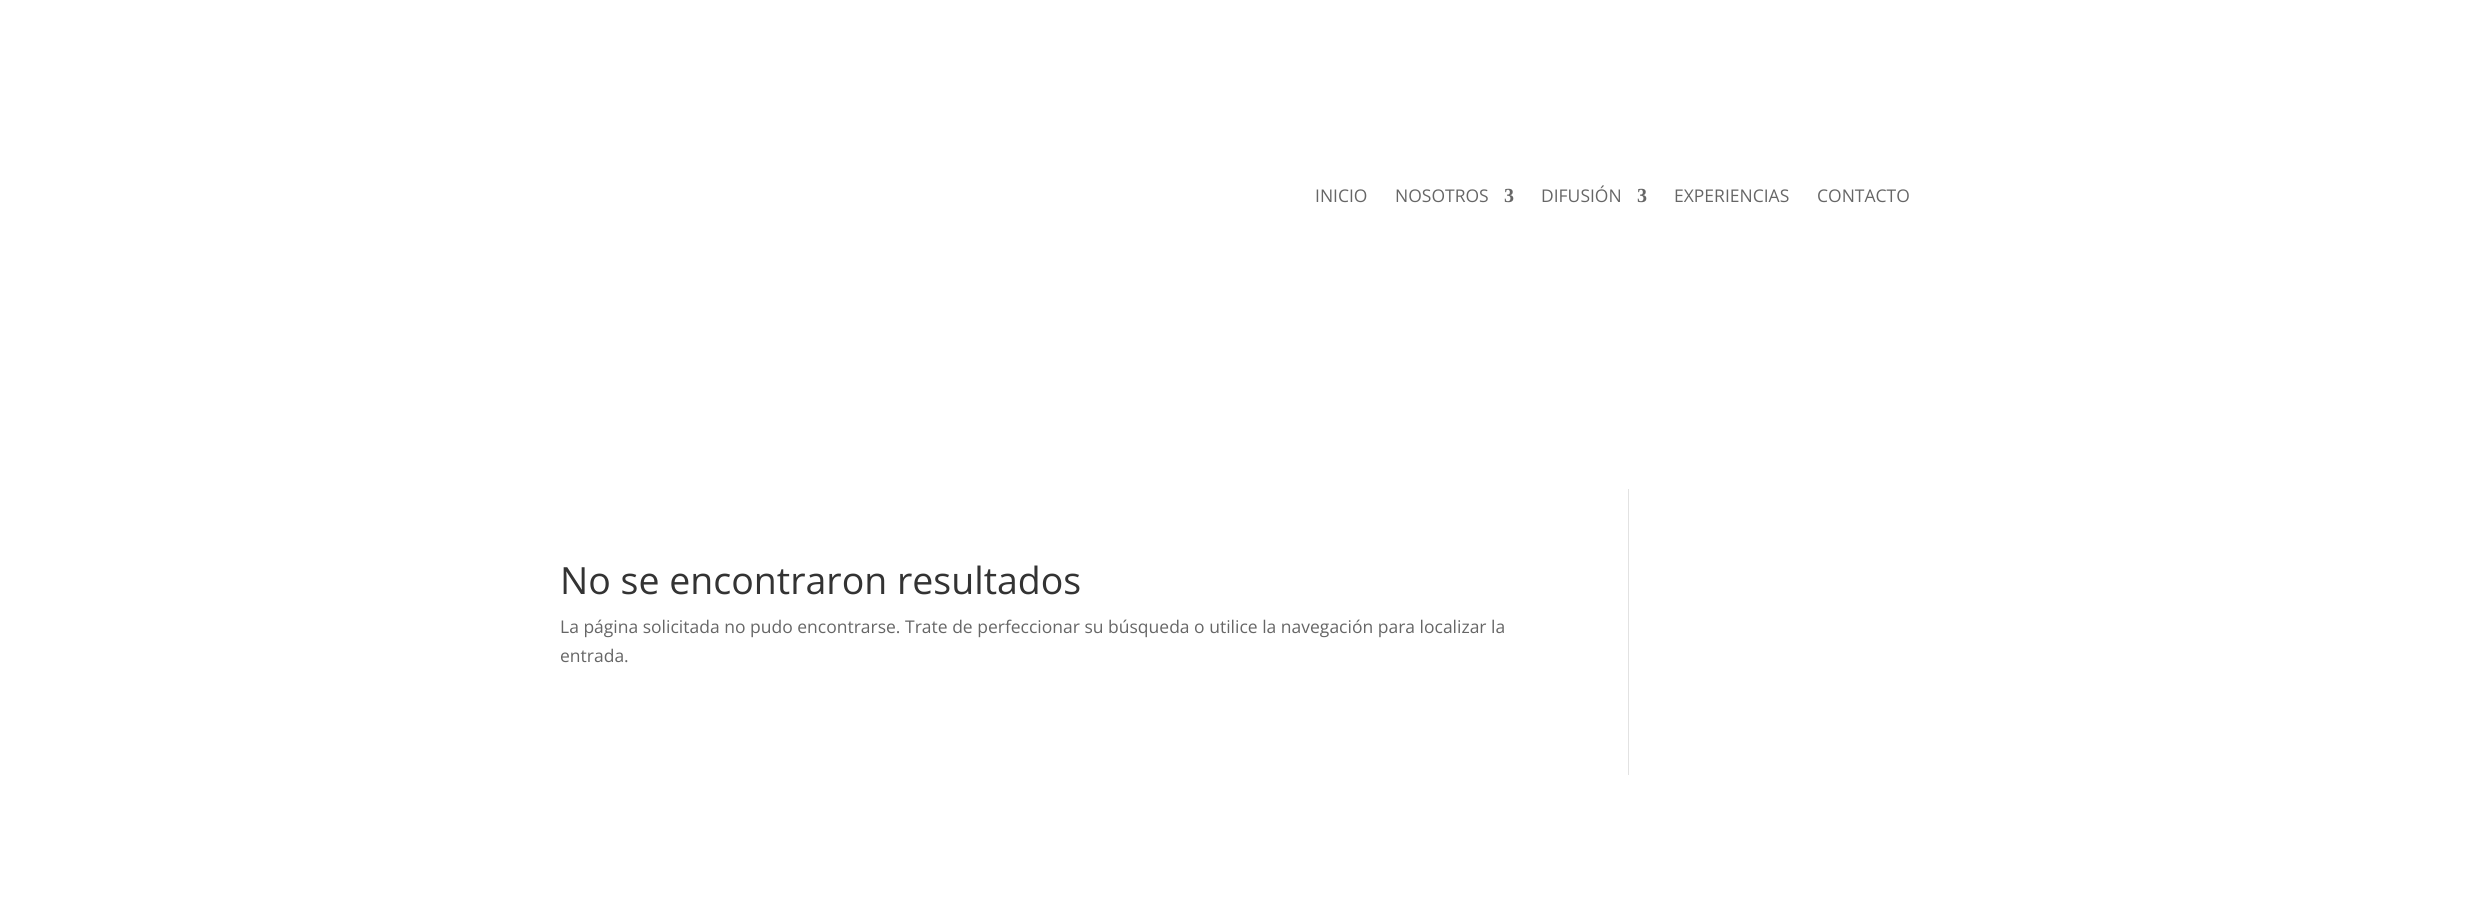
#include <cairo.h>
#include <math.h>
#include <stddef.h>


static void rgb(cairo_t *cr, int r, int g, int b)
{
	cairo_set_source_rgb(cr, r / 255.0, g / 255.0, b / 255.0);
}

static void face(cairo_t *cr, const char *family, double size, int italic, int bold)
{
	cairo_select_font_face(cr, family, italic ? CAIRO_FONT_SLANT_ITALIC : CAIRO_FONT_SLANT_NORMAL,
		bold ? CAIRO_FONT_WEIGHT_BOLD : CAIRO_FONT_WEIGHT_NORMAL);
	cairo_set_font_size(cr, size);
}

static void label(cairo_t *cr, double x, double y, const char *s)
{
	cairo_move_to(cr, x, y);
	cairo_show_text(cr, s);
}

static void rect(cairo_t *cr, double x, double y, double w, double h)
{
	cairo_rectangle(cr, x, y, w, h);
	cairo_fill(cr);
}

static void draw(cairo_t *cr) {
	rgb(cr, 255, 255, 255);
	cairo_paint(cr);
	face(cr, "Open Sans", 17.5, 0, 0);
	rgb(cr, 102, 102, 102);
	label(cr, 1315, 202, "INICIO");
	label(cr, 1395, 202, "NOSOTROS");
	face(cr, "Liberation Serif", 20, 0, 1);
	label(cr, 1504, 202, "3");
	face(cr, "Open Sans", 17.5, 0, 0);
	label(cr, 1541, 202, "DIFUSIÓN");
	face(cr, "Liberation Serif", 20, 0, 1);
	label(cr, 1637, 202, "3");
	face(cr, "Open Sans", 17.5, 0, 0);
	label(cr, 1674, 202, "EXPERIENCIAS");
	label(cr, 1817, 202, "CONTACTO");
	face(cr, "Open Sans", 37.5, 0, 0);
	rgb(cr, 51, 51, 51);
	label(cr, 560, 594, "No se encontraron resultados");
	face(cr, "Open Sans", 17.5, 0, 0);
	rgb(cr, 102, 102, 102);
	label(cr, 560, 633, "La página solicitada no pudo encontrarse. Trate de perfeccionar su búsqueda o utilice la navegación para localizar la");
	label(cr, 560, 662, "entrada.");
	rgb(cr, 226, 226, 226);
	rect(cr, 1628, 489, 1, 286);
}

int main(void) {
	cairo_surface_t *surface = cairo_image_surface_create(CAIRO_FORMAT_RGB24, 2470, 901);
	cairo_t *cr = cairo_create(surface);
	cairo_font_options_t *options = cairo_font_options_create();
	cairo_font_options_set_hint_metrics(options, CAIRO_HINT_METRICS_OFF);
	cairo_font_options_set_hint_style(options, CAIRO_HINT_STYLE_NONE);
	cairo_set_font_options(cr, options);
	cairo_set_miter_limit(cr, 4);
	draw(cr);
	cairo_surface_write_to_png(surface, "render.png");
	cairo_font_options_destroy(options);
	cairo_destroy(cr);
	cairo_surface_destroy(surface);
	return 0;
}
